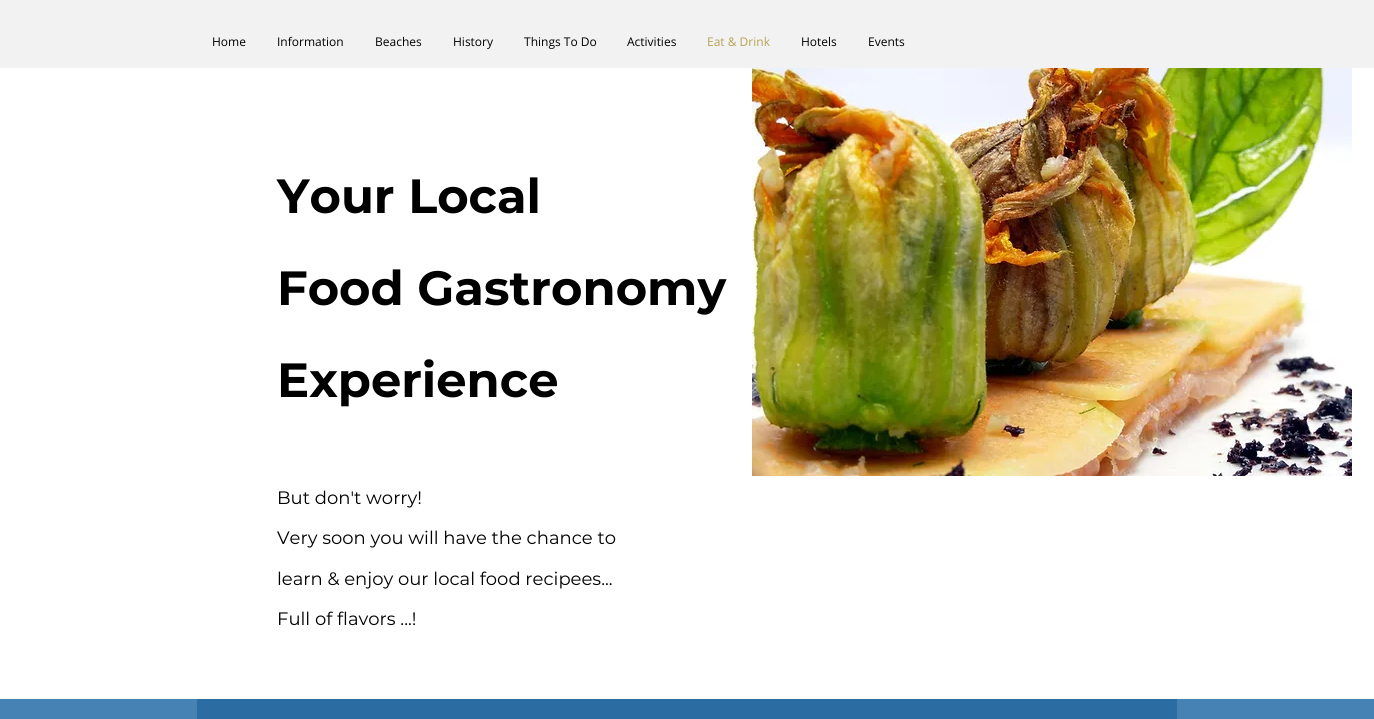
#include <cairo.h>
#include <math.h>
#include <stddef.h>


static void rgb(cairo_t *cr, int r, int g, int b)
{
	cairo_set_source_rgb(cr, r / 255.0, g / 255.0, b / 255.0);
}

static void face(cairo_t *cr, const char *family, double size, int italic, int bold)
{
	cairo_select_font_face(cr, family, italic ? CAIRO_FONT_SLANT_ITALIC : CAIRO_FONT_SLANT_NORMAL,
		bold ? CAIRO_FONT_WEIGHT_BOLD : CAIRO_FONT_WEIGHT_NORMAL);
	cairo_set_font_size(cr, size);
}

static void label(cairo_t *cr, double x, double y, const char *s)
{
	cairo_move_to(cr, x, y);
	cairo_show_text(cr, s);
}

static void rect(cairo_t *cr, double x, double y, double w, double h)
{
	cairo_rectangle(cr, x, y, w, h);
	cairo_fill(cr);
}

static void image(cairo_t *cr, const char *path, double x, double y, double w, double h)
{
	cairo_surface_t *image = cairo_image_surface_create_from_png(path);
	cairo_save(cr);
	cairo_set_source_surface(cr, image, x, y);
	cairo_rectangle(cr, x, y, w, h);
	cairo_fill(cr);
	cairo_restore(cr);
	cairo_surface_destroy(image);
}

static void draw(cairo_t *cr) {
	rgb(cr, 255, 255, 255);
	cairo_paint(cr);
	rgb(cr, 242, 242, 242);
	rect(cr, 0, 0, 1374, 68);
	face(cr, "Open Sans", 12, 0, 0);
	rgb(cr, 0, 0, 0);
	label(cr, 212, 46, "Home");
	label(cr, 277, 46, "Information");
	label(cr, 375, 46, "Beaches");
	label(cr, 453, 46, "History");
	label(cr, 524, 46, "Things To Do");
	label(cr, 627, 46, "Activities");
	rgb(cr, 183, 163, 84);
	label(cr, 707, 46, "Eat & Drink");
	rgb(cr, 0, 0, 0);
	label(cr, 801, 46, "Hotels");
	label(cr, 868, 46, "Events");
	face(cr, "Montserrat", 48, 0, 1);
	label(cr, 277, 213, "Your Local");
	label(cr, 277, 305, "Food Gastronomy");
	label(cr, 277, 397, "Experience");
	face(cr, "Montserrat", 18, 0, 0);
	label(cr, 277, 504, "But don't worry!");
	label(cr, 277, 544, "Very soon you will have the chance to");
	label(cr, 277, 585, "learn & enjoy our local food recipees...");
	label(cr, 277, 625, "Full of flavors ...!");
	image(cr, "image0.png", 752, 68, 600, 408);
	rgb(cr, 70, 130, 180);
	rect(cr, 0, 699, 1374, 20);
	rgb(cr, 43, 108, 163);
	rect(cr, 197, 699, 980, 20);
}

int main(void) {
	cairo_surface_t *surface = cairo_image_surface_create(CAIRO_FORMAT_RGB24, 1374, 719);
	cairo_t *cr = cairo_create(surface);
	cairo_font_options_t *options = cairo_font_options_create();
	cairo_font_options_set_hint_metrics(options, CAIRO_HINT_METRICS_OFF);
	cairo_font_options_set_hint_style(options, CAIRO_HINT_STYLE_NONE);
	cairo_set_font_options(cr, options);
	cairo_set_miter_limit(cr, 4);
	draw(cr);
	cairo_surface_write_to_png(surface, "render.png");
	cairo_font_options_destroy(options);
	cairo_destroy(cr);
	cairo_surface_destroy(surface);
	return 0;
}
